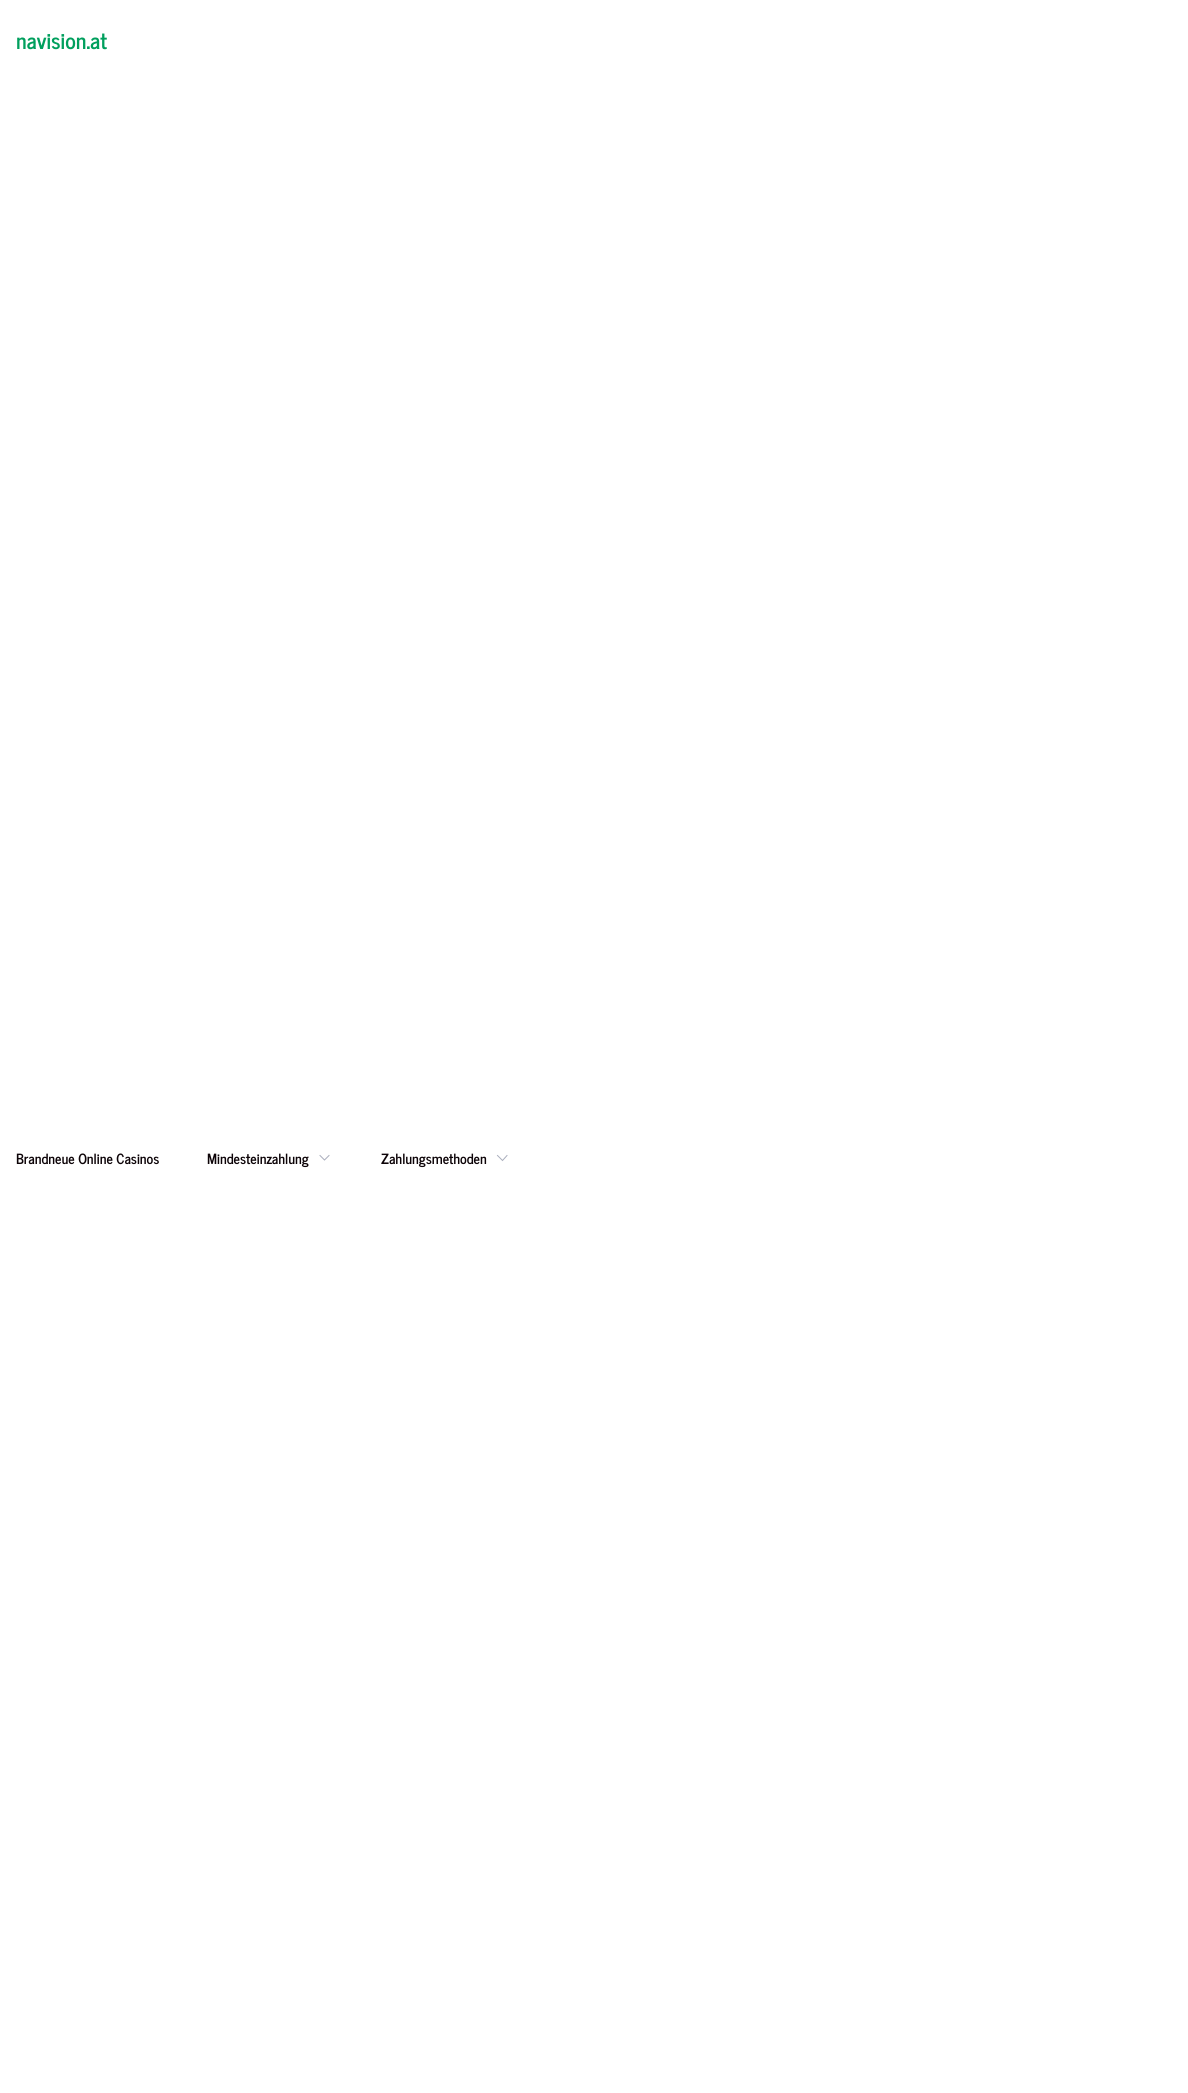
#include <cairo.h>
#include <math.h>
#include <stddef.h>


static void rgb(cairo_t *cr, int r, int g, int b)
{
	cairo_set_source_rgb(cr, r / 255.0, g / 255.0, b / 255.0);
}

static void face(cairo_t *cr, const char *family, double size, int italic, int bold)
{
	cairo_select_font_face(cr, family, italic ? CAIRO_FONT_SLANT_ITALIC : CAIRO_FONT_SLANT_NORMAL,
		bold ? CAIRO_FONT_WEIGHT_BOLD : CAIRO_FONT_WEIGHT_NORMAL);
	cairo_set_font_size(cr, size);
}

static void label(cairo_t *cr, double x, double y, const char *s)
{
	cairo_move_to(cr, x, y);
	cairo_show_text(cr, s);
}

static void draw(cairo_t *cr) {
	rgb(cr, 255, 255, 255);
	cairo_paint(cr);
	face(cr, "News Cycle", 22, 0, 1);
	rgb(cr, 0, 159, 93);
	label(cr, 16, 49, "navision.at");
	face(cr, "News Cycle", 14, 0, 1);
	rgb(cr, 13, 4, 8);
	label(cr, 16, 1164, "Brandneue Online Casinos");
	label(cr, 207, 1164, "Mindesteinzahlung");
	cairo_new_path(cr);
	cairo_move_to(cr, 320, 1155.5);
	cairo_line_to(cr, 324.5, 1160);
	cairo_line_to(cr, 329, 1155.5);
	rgb(cr, 170, 174, 189);
	cairo_set_line_width(cr, 1);
	cairo_set_line_cap(cr, CAIRO_LINE_CAP_SQUARE);
	cairo_stroke(cr);
	rgb(cr, 13, 4, 8);
	label(cr, 381, 1164, "Zahlungsmethoden");
	cairo_new_path(cr);
	cairo_move_to(cr, 497.5, 1155.5);
	cairo_line_to(cr, 502.5, 1160.5);
	cairo_line_to(cr, 507, 1155.5);
	rgb(cr, 170, 174, 189);
	cairo_stroke(cr);
}

int main(void) {
	cairo_surface_t *surface = cairo_image_surface_create(CAIRO_FORMAT_RGB24, 1188, 2093);
	cairo_t *cr = cairo_create(surface);
	cairo_font_options_t *options = cairo_font_options_create();
	cairo_font_options_set_hint_metrics(options, CAIRO_HINT_METRICS_OFF);
	cairo_font_options_set_hint_style(options, CAIRO_HINT_STYLE_NONE);
	cairo_set_font_options(cr, options);
	cairo_set_miter_limit(cr, 4);
	draw(cr);
	cairo_surface_write_to_png(surface, "render.png");
	cairo_font_options_destroy(options);
	cairo_destroy(cr);
	cairo_surface_destroy(surface);
	return 0;
}
